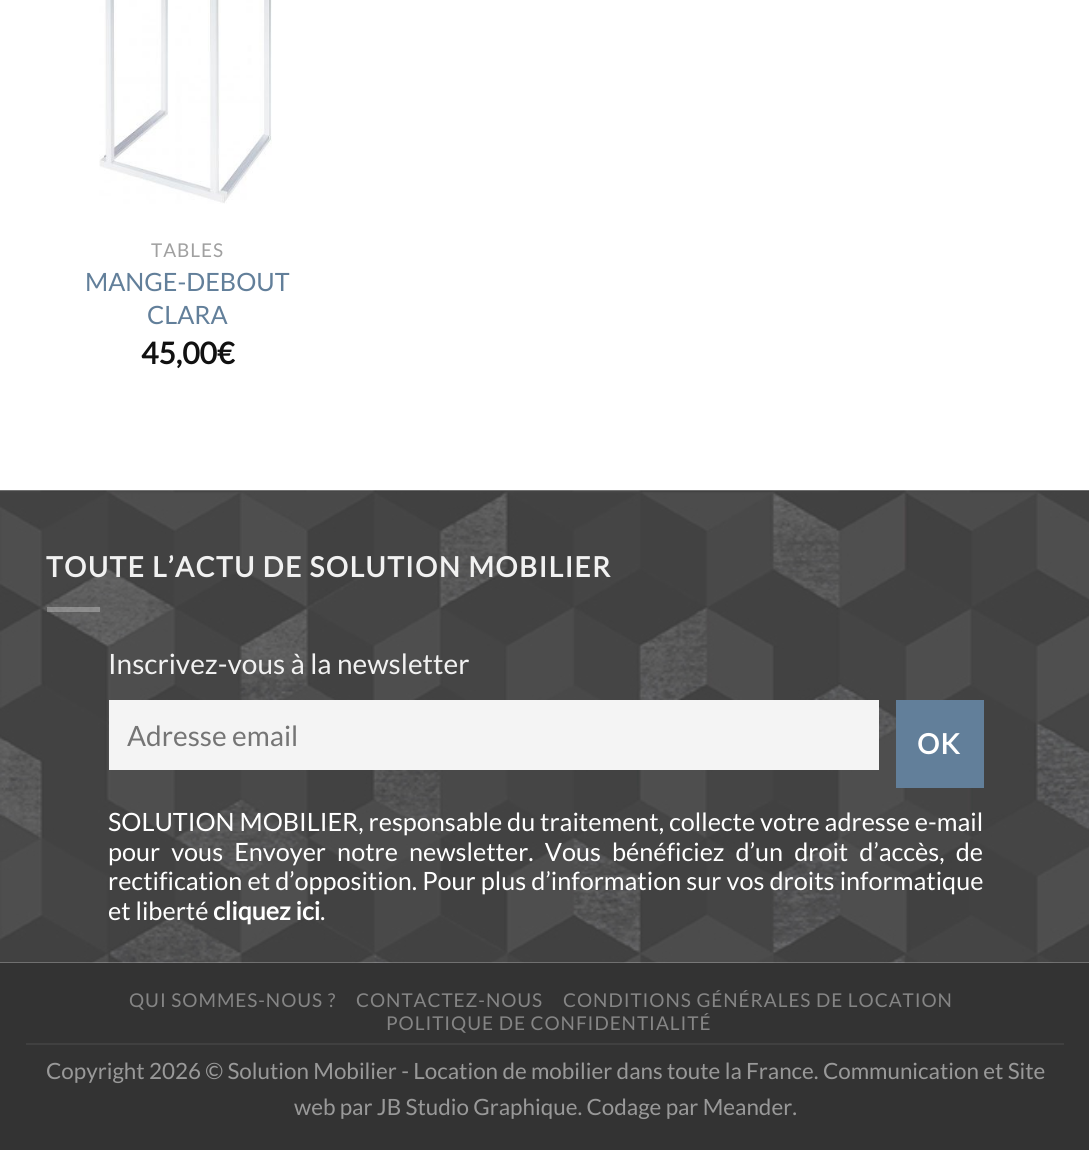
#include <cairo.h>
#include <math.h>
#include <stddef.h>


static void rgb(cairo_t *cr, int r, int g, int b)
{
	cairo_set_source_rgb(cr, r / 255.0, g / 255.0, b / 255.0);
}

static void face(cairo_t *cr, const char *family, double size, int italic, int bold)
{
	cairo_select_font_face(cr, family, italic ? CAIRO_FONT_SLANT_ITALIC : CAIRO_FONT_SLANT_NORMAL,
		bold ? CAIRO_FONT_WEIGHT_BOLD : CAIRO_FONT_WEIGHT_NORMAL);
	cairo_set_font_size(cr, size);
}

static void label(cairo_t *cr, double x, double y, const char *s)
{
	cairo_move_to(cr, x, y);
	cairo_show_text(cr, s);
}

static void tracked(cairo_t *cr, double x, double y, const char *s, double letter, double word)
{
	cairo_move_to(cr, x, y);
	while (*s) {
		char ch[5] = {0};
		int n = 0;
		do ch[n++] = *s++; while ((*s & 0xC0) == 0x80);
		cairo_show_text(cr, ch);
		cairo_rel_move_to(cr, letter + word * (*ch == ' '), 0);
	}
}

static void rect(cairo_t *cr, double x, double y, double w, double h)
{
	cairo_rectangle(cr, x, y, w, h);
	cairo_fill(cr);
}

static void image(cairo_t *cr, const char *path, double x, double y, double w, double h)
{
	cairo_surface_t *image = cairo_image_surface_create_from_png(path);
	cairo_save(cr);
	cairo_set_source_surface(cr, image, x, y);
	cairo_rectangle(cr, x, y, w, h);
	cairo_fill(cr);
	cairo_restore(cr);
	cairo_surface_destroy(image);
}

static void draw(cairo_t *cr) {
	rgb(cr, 255, 255, 255);
	cairo_paint(cr);
	image(cr, "image0.png", 99, 0, 173, 204);
	face(cr, "Lato", 19, 0, 0);
	rgb(cr, 160, 160, 160);
	tracked(cr, 151, 257, "TABLES", 0.95, 0);
	face(cr, "Lato", 25.2, 0, 0);
	rgb(cr, 98, 127, 154);
	label(cr, 85, 291, "MANGE-DEBOUT");
	label(cr, 147, 324, "CLARA");
	face(cr, "Lato", 30, 0, 1);
	rgb(cr, 17, 17, 17);
	label(cr, 141, 364, "45,00€");
	image(cr, "image1.png", 0, 490, 1089, 473);
	cairo_set_source_rgba(cr, 0, 0, 0, 0.05);
	rect(cr, 0, 490, 1089, 2);
	face(cr, "Lato", 28, 0, 1);
	rgb(cr, 241, 241, 241);
	tracked(cr, 46, 577, "TOUTE L’ACTU DE SOLUTION MOBILIER", 1.4, 0);
	cairo_set_source_rgba(cr, 1, 1, 1, 0.3);
	rect(cr, 47, 607, 53, 5);
	face(cr, "Lato", 28, 0, 0);
	rgb(cr, 241, 241, 241);
	label(cr, 108, 674, "Inscrivez-vous à la newsletter");
	rgb(cr, 244, 244, 244);
	rect(cr, 109, 700, 770, 70);
	rgb(cr, 117, 117, 117);
	label(cr, 127, 746, "Adresse email");
	rgb(cr, 98, 127, 154);
	rect(cr, 896, 700, 88, 88);
	face(cr, "Lato", 28, 0, 1);
	rgb(cr, 255, 255, 255);
	tracked(cr, 917, 754, "OK", 1, 0);
	face(cr, "Lato", 25.2, 0, 0);
	label(cr, 108, 831, "SOLUTION MOBILIER, responsable du traitement, collecte votre adresse e-mail");
	tracked(cr, 108, 861, "pour vous Envoyer notre newsletter. Vous bénéficiez d’un droit d’accès, de", 0, 6.25);
	tracked(cr, 108, 890, "rectification et d’opposition. Pour plus d’information sur vos droits informatique", 0, 0.25);
	label(cr, 108, 920, "et liberté");
	face(cr, "Lato", 25.2, 0, 1);
	label(cr, 213, 920, "cliquez ici");
	face(cr, "Lato", 25.2, 0, 0);
	label(cr, 320, 920, ".");
	rgb(cr, 51, 51, 51);
	rect(cr, 0, 963, 1089, 187);
	rgb(cr, 64, 64, 64);
	rect(cr, 26, 1043, 1038, 2);
	face(cr, "Lato", 19, 0, 0);
	rgb(cr, 133, 133, 133);
	tracked(cr, 129, 1007, "QUI SOMMES-NOUS ?", 0.95, 0);
	tracked(cr, 356, 1007, "CONTACTEZ-NOUS", 0.95, 0);
	tracked(cr, 563, 1007, "CONDITIONS GÉNÉRALES DE LOCATION", 0.95, 0);
	tracked(cr, 386, 1030, "POLITIQUE DE CONFIDENTIALITÉ", 0.95, 0);
	face(cr, "Lato", 22.4, 0, 0);
	rgb(cr, 153, 153, 153);
	label(cr, 46, 1079, "Copyright 2026 © Solution Mobilier - Location de mobilier dans toute la France. Communication et Site");
	label(cr, 294, 1115, "web par JB Studio Graphique. Codage par Meander.");
}

int main(void) {
	cairo_surface_t *surface = cairo_image_surface_create(CAIRO_FORMAT_RGB24, 1089, 1150);
	cairo_t *cr = cairo_create(surface);
	cairo_font_options_t *options = cairo_font_options_create();
	cairo_font_options_set_hint_metrics(options, CAIRO_HINT_METRICS_OFF);
	cairo_font_options_set_hint_style(options, CAIRO_HINT_STYLE_NONE);
	cairo_set_font_options(cr, options);
	cairo_set_miter_limit(cr, 4);
	draw(cr);
	cairo_surface_write_to_png(surface, "render.png");
	cairo_font_options_destroy(options);
	cairo_destroy(cr);
	cairo_surface_destroy(surface);
	return 0;
}
